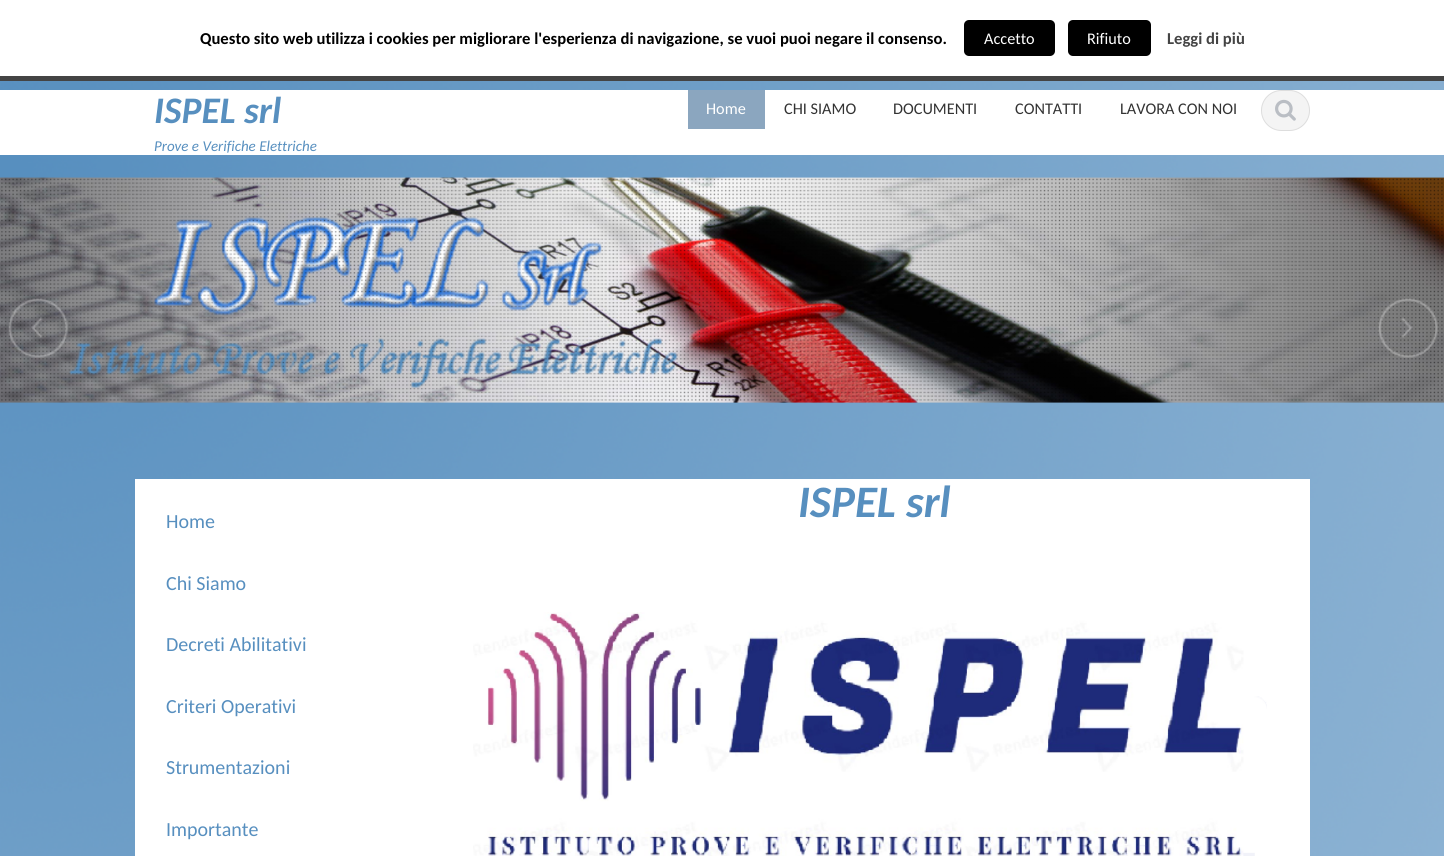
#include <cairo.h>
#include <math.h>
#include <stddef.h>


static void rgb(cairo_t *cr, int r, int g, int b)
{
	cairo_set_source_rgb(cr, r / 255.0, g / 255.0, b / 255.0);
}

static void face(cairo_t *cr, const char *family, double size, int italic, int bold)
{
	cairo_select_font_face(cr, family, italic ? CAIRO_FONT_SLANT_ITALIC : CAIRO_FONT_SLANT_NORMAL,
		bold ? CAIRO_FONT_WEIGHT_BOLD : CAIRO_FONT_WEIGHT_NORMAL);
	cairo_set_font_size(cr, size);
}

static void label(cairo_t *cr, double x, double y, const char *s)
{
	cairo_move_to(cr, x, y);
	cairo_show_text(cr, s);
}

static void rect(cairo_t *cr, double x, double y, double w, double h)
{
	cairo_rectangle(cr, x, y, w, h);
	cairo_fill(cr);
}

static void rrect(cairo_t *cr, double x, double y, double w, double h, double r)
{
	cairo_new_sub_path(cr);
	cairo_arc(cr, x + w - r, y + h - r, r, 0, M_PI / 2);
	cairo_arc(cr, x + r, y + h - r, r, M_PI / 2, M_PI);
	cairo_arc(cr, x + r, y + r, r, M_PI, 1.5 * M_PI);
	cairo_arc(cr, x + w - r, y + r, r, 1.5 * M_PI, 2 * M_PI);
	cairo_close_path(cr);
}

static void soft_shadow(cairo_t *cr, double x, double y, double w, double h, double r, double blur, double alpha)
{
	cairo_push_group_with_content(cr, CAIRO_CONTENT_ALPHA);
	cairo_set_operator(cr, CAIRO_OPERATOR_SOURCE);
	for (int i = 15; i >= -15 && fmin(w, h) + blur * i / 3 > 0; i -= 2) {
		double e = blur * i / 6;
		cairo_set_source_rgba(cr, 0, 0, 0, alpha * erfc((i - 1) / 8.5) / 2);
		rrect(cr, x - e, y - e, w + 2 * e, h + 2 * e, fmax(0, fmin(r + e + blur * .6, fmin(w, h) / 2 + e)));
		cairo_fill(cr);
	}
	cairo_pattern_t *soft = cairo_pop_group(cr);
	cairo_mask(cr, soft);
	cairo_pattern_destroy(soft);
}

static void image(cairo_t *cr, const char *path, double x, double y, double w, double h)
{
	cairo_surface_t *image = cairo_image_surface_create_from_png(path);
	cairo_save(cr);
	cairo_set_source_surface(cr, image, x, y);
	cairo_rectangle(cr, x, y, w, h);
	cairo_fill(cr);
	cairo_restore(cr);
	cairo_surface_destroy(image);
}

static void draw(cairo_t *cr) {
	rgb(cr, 255, 255, 255);
	cairo_paint(cr);
	image(cr, "image0.png", 0, 81, 1444, 775);
	cairo_save(cr);
	cairo_set_fill_rule(cr, CAIRO_FILL_RULE_EVEN_ODD);
	cairo_new_path(cr);
	cairo_move_to(cr, 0, 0);
	cairo_line_to(cr, 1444, 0);
	cairo_line_to(cr, 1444, 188);
	cairo_line_to(cr, 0, 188);
	cairo_close_path(cr);
	cairo_move_to(cr, 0, 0);
	cairo_line_to(cr, 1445, 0);
	cairo_line_to(cr, 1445, 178);
	cairo_line_to(cr, 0, 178);
	cairo_close_path(cr);
	cairo_clip(cr);
	rgb(cr, 221, 221, 221);
	soft_shadow(cr, 1, 1, 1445, 178, 0, 2.5, 1);
	cairo_restore(cr);
	rgb(cr, 68, 68, 68);
	rect(cr, 0, 76, 1444, 5);
	face(cr, "Carlito", 16.65, 0, 1);
	rgb(cr, 0, 0, 0);
	label(cr, 200, 44, "Questo sito web utilizza i cookies per migliorare l'esperienza di navigazione, se vuoi puoi negare il consenso.");
	rrect(cr, 964, 20, 91, 36, 5);
	cairo_fill(cr);
	face(cr, "Carlito", 16.25, 0, 0);
	rgb(cr, 255, 255, 255);
	label(cr, 984, 44, "Accetto");
	rgb(cr, 0, 0, 0);
	rrect(cr, 1068, 20, 83, 36, 5);
	cairo_fill(cr);
	rgb(cr, 255, 255, 255);
	label(cr, 1087, 44, "Rifiuto");
	face(cr, "Carlito", 16.65, 0, 1);
	rgb(cr, 68, 68, 68);
	label(cr, 1167, 44, "Leggi di più");
	rgb(cr, 255, 255, 255);
	rect(cr, 0, 90, 1444, 65);
	face(cr, "Carlito", 37.5, 1, 1);
	rgb(cr, 87, 143, 191);
	label(cr, 154, 123, "ISPEL srl");
	face(cr, "Carlito", 15, 1, 0);
	label(cr, 154, 151, "Prove e Verifiche Elettriche");
	rgb(cr, 139, 166, 191);
	rect(cr, 688, 90, 77, 39);
	face(cr, "Carlito", 16.25, 0, 0);
	rgb(cr, 255, 255, 255);
	label(cr, 706, 114, "Home");
	rgb(cr, 51, 51, 51);
	label(cr, 784, 114, "CHI SIAMO");
	label(cr, 893, 114, "DOCUMENTI");
	label(cr, 1015, 114, "CONTATTI");
	label(cr, 1120, 114, "LAVORA CON NOI");
	rgb(cr, 244, 244, 244);
	rrect(cr, 1261.5, 90.5, 48, 40, 20);
	cairo_fill_preserve(cr);
	rgb(cr, 221, 221, 221);
	cairo_set_line_width(cr, 1);
	cairo_stroke(cr);
	image(cr, "image1.png", 1275, 99, 21, 22);
	image(cr, "image2.png", 0, 177, 1444, 226);
	image(cr, "image3.png", 1, 178, 1442, 223);
	image(cr, "image4.png", 8, 298, 60, 60);
	image(cr, "image5.png", 1378, 298, 60, 60);
	rgb(cr, 255, 255, 255);
	rect(cr, 135, 479, 1175, 377);
	face(cr, "Carlito", 45, 1, 1);
	rgb(cr, 87, 143, 191);
	label(cr, 798, 517, "ISPEL srl");
	image(cr, "image6.png", 473, 612, 794, 244);
	face(cr, "Carlito", 20, 0, 0);
	label(cr, 166, 528, "Home");
	label(cr, 166, 590, "Chi Siamo");
	label(cr, 166, 651, "Decreti Abilitativi");
	label(cr, 166, 713, "Criteri Operativi");
	label(cr, 166, 774, "Strumentazioni");
	label(cr, 166, 836, "Importante");
}

int main(void) {
	cairo_surface_t *surface = cairo_image_surface_create(CAIRO_FORMAT_RGB24, 1444, 856);
	cairo_t *cr = cairo_create(surface);
	cairo_font_options_t *options = cairo_font_options_create();
	cairo_font_options_set_hint_metrics(options, CAIRO_HINT_METRICS_OFF);
	cairo_font_options_set_hint_style(options, CAIRO_HINT_STYLE_NONE);
	cairo_set_font_options(cr, options);
	cairo_set_miter_limit(cr, 4);
	draw(cr);
	cairo_surface_write_to_png(surface, "render.png");
	cairo_font_options_destroy(options);
	cairo_destroy(cr);
	cairo_surface_destroy(surface);
	return 0;
}
